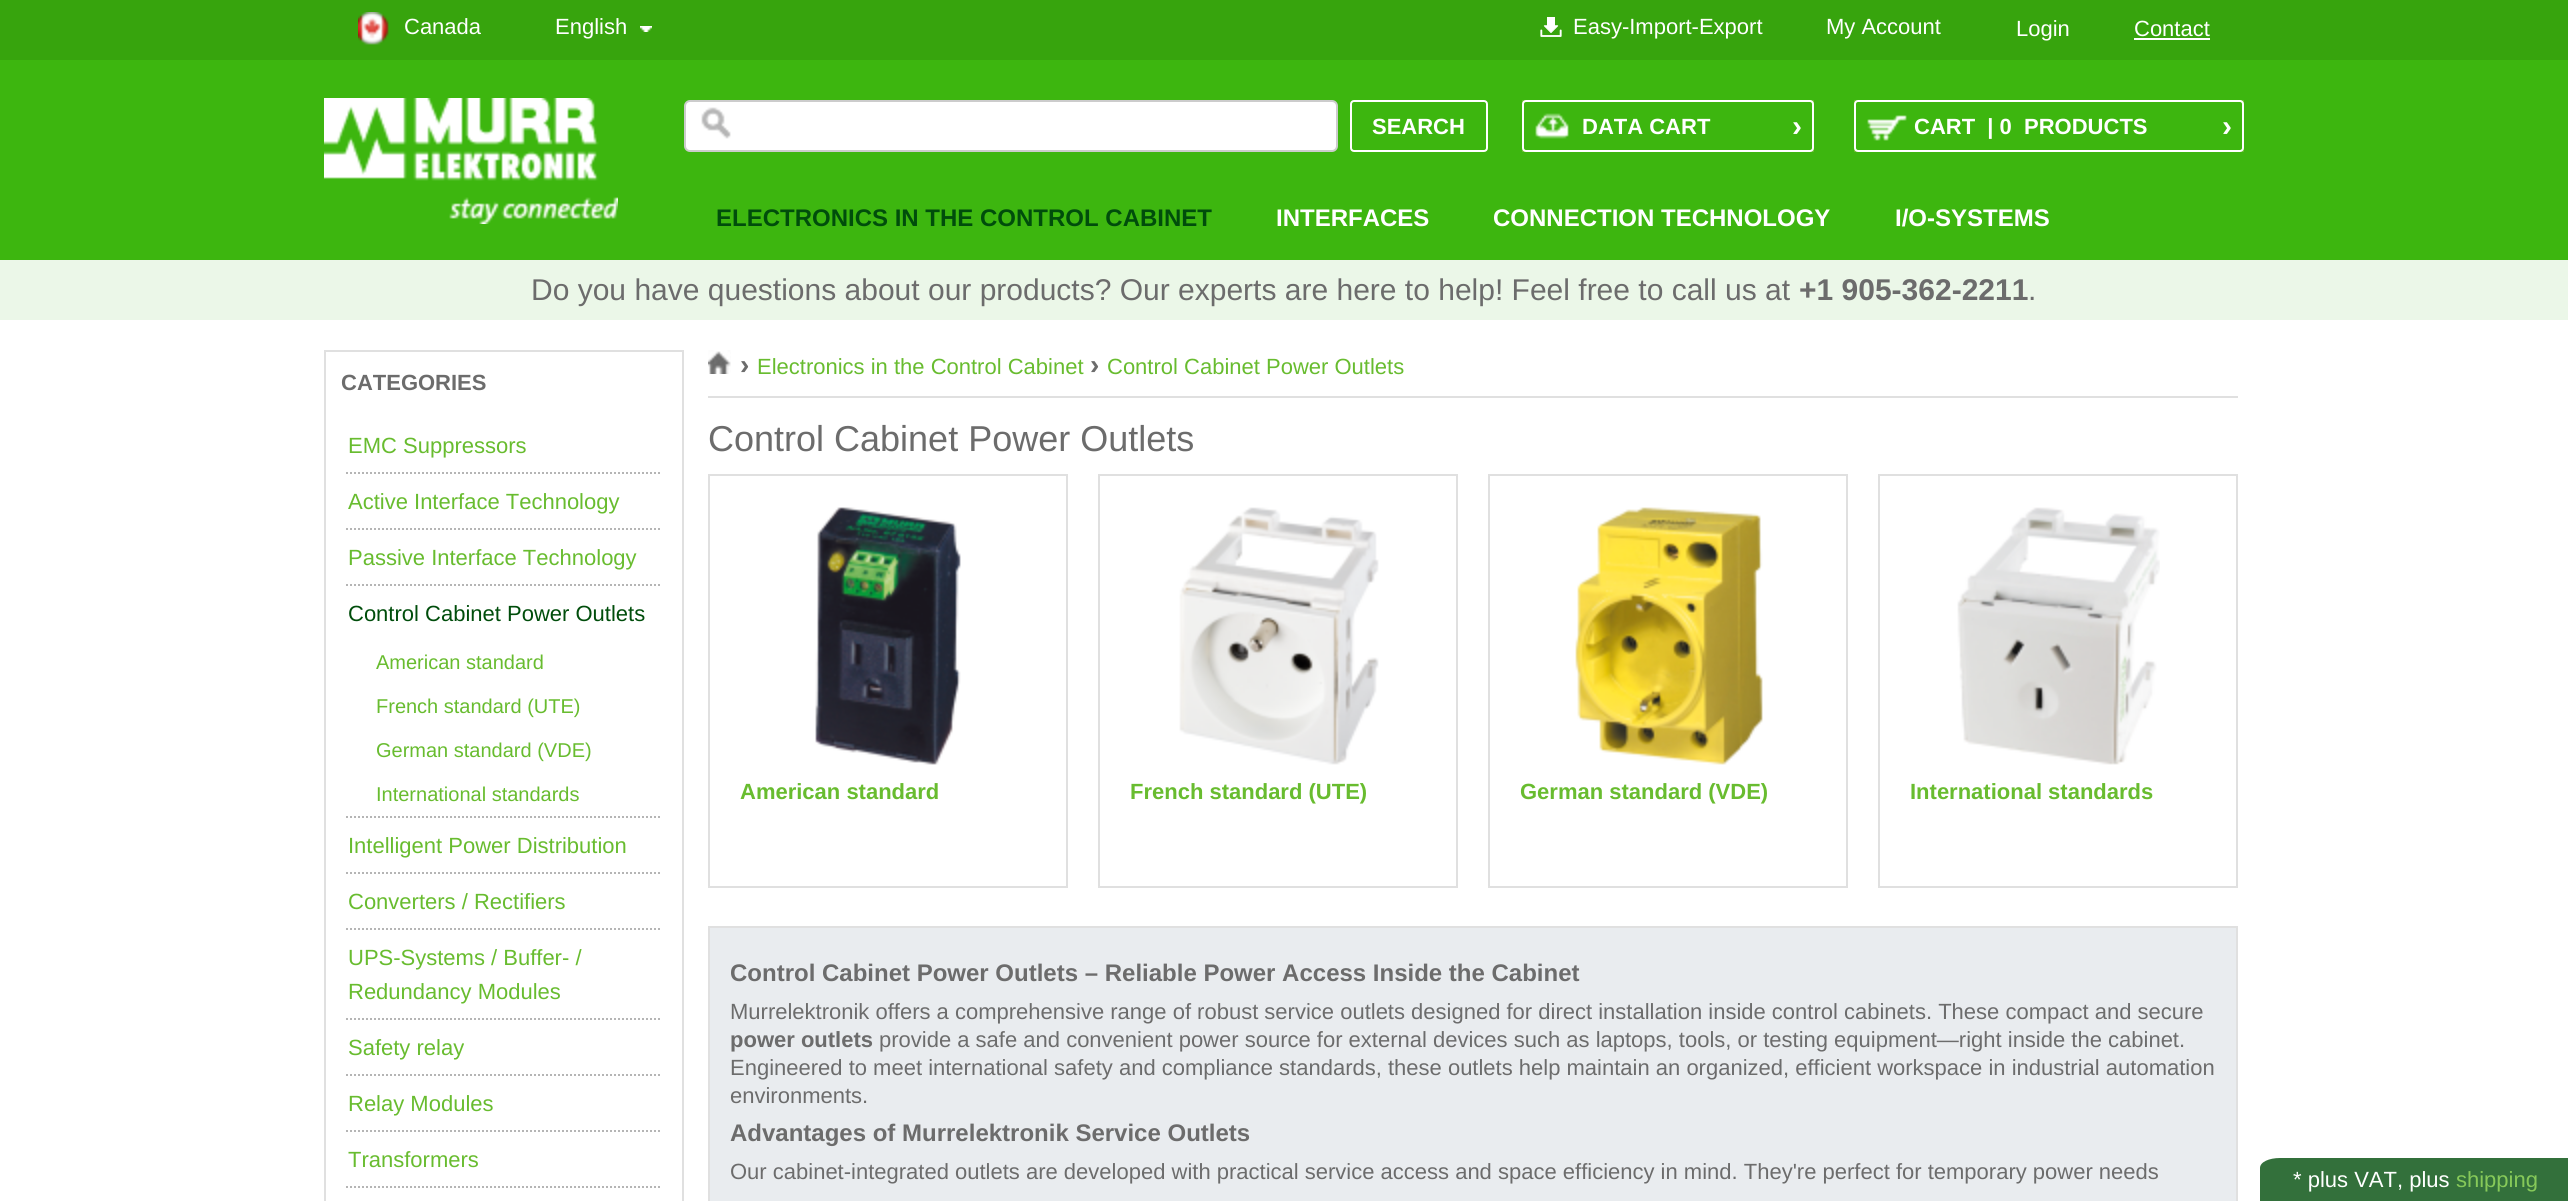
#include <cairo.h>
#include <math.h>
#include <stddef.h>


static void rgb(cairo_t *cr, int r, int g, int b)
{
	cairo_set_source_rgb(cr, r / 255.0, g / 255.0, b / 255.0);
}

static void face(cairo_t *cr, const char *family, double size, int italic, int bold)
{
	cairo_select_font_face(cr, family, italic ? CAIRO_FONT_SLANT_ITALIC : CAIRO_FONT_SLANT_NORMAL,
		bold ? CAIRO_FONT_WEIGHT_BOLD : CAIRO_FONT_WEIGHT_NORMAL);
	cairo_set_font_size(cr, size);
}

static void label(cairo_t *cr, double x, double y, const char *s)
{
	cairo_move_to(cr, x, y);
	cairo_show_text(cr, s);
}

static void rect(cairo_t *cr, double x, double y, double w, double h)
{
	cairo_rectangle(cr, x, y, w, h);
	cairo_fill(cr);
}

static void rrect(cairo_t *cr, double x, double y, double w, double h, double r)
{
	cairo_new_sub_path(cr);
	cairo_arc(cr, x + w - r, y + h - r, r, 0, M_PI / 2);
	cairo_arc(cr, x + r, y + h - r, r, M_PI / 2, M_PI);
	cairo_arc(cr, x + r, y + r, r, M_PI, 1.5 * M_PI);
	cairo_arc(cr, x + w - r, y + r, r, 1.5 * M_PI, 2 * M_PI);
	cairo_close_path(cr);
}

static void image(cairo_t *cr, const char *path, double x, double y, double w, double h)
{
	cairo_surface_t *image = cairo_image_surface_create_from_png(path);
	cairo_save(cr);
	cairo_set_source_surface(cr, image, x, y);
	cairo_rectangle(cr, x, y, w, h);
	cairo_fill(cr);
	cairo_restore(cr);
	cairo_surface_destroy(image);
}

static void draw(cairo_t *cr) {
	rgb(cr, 255, 255, 255);
	cairo_paint(cr);
	rgb(cr, 55, 164, 13);
	rect(cr, 0, 0, 2568, 60);
	image(cr, "image0.png", 358, 12, 31, 33);
	face(cr, "Liberation Sans", 22, 0, 0);
	rgb(cr, 255, 255, 255);
	label(cr, 404, 34, "Canada");
	label(cr, 555, 34, "English");
	image(cr, "image1.png", 640, 26, 12, 6);
	image(cr, "image2.png", 1540, 17, 22, 20);
	label(cr, 1573, 34, "Easy-Import-Export");
	label(cr, 1826, 34, "My Account");
	label(cr, 2016, 36, "Login");
	label(cr, 2134, 36, "Contact");
	rect(cr, 2134, 38, 76, 2);
	rgb(cr, 61, 182, 15);
	rect(cr, 0, 60, 2568, 200);
	image(cr, "image3.png", 324, 98, 294, 126);
	rgb(cr, 255, 255, 255);
	rrect(cr, 685, 101, 652, 50, 5);
	cairo_fill_preserve(cr);
	rgb(cr, 204, 204, 204);
	cairo_stroke(cr);
	image(cr, "image4.png", 701, 107, 30, 32);
	rrect(cr, 1351, 101, 136, 50, 3);
	rgb(cr, 255, 255, 255);
	cairo_stroke(cr);
	face(cr, "Liberation Sans", 22, 0, 1);
	label(cr, 1372, 134, "SEARCH");
	rgb(cr, 104, 187, 46);
	rect(cr, 1522, 100, 292, 52);
	rgb(cr, 61, 182, 15);
	rrect(cr, 1523, 101, 290, 50, 3);
	cairo_fill_preserve(cr);
	rgb(cr, 255, 255, 255);
	cairo_stroke(cr);
	image(cr, "image5.png", 1535, 113, 34, 26);
	label(cr, 1582, 134, "DATA CART");
	face(cr, "Liberation Sans", 30, 0, 1);
	label(cr, 1792, 136, "›");
	rgb(cr, 104, 187, 46);
	rect(cr, 1854, 100, 390, 52);
	rgb(cr, 61, 182, 15);
	rrect(cr, 1855, 101, 388, 50, 3);
	cairo_fill_preserve(cr);
	rgb(cr, 255, 255, 255);
	cairo_stroke(cr);
	image(cr, "image6.png", 1867, 115, 40, 26);
	face(cr, "Liberation Sans", 22, 0, 1);
	label(cr, 1914, 134, "CART  | 0  PRODUCTS");
	face(cr, "Liberation Sans", 30, 0, 1);
	label(cr, 2222, 136, "›");
	face(cr, "Liberation Sans", 24, 0, 1);
	rgb(cr, 0, 77, 11);
	label(cr, 716, 226, "ELECTRONICS IN THE CONTROL CABINET");
	rgb(cr, 255, 255, 255);
	label(cr, 1276, 226, "INTERFACES");
	label(cr, 1493, 226, "CONNECTION TECHNOLOGY");
	label(cr, 1895, 226, "I/O-SYSTEMS");
	rgb(cr, 235, 247, 232);
	rect(cr, 0, 260, 2568, 60);
	face(cr, "Liberation Sans", 30, 0, 0);
	rgb(cr, 108, 108, 108);
	label(cr, 531, 300, "Do you have questions about our products? Our experts are here to help! Feel free to call us at");
	face(cr, "Liberation Sans", 30, 0, 1);
	label(cr, 1799, 300, "+1 905-362-2211");
	face(cr, "Liberation Sans", 30, 0, 0);
	label(cr, 2028, 300, ".");
	cairo_rectangle(cr, 325, 351, 358, 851);
	rgb(cr, 224, 224, 224);
	cairo_stroke(cr);
	face(cr, "Liberation Sans", 22, 0, 1);
	rgb(cr, 108, 108, 108);
	label(cr, 341, 390, "CATEGORIES");
	cairo_new_path(cr);
	cairo_move_to(cr, 346, 473);
	cairo_line_to(cr, 662, 473);
	rgb(cr, 181, 181, 181);
	cairo_set_dash(cr, (double[]){2, 2}, 2, 0);
	cairo_stroke(cr);
	face(cr, "Liberation Sans", 22, 0, 0);
	rgb(cr, 104, 188, 47);
	label(cr, 348, 453, "EMC Suppressors");
	cairo_new_path(cr);
	cairo_move_to(cr, 346, 529);
	cairo_line_to(cr, 662, 529);
	rgb(cr, 181, 181, 181);
	cairo_stroke(cr);
	rgb(cr, 104, 188, 47);
	label(cr, 348, 509, "Active Interface Technology");
	cairo_new_path(cr);
	cairo_move_to(cr, 346, 585);
	cairo_line_to(cr, 662, 585);
	rgb(cr, 181, 181, 181);
	cairo_stroke(cr);
	rgb(cr, 104, 188, 47);
	label(cr, 348, 565, "Passive Interface Technology");
	cairo_new_path(cr);
	cairo_move_to(cr, 346, 817);
	cairo_line_to(cr, 662, 817);
	rgb(cr, 181, 181, 181);
	cairo_stroke(cr);
	rgb(cr, 0, 77, 11);
	label(cr, 348, 621, "Control Cabinet Power Outlets");
	face(cr, "Liberation Sans", 20, 0, 0);
	rgb(cr, 104, 188, 47);
	label(cr, 376, 669, "American standard");
	label(cr, 376, 713, "French standard (UTE)");
	label(cr, 376, 757, "German standard (VDE)");
	label(cr, 376, 801, "International standards");
	cairo_new_path(cr);
	cairo_move_to(cr, 346, 873);
	cairo_line_to(cr, 662, 873);
	rgb(cr, 181, 181, 181);
	cairo_stroke(cr);
	face(cr, "Liberation Sans", 22, 0, 0);
	rgb(cr, 104, 188, 47);
	label(cr, 348, 853, "Intelligent Power Distribution");
	cairo_new_path(cr);
	cairo_move_to(cr, 346, 929);
	cairo_line_to(cr, 662, 929);
	rgb(cr, 181, 181, 181);
	cairo_stroke(cr);
	rgb(cr, 104, 188, 47);
	label(cr, 348, 909, "Converters / Rectifiers");
	cairo_new_path(cr);
	cairo_move_to(cr, 346, 1019);
	cairo_line_to(cr, 662, 1019);
	rgb(cr, 181, 181, 181);
	cairo_stroke(cr);
	rgb(cr, 104, 188, 47);
	label(cr, 348, 965, "UPS-Systems / Buffer- /");
	label(cr, 348, 999, "Redundancy Modules");
	cairo_new_path(cr);
	cairo_move_to(cr, 346, 1075);
	cairo_line_to(cr, 662, 1075);
	rgb(cr, 181, 181, 181);
	cairo_stroke(cr);
	rgb(cr, 104, 188, 47);
	label(cr, 348, 1055, "Safety relay");
	cairo_new_path(cr);
	cairo_move_to(cr, 346, 1131);
	cairo_line_to(cr, 662, 1131);
	rgb(cr, 181, 181, 181);
	cairo_stroke(cr);
	rgb(cr, 104, 188, 47);
	label(cr, 348, 1111, "Relay Modules");
	cairo_new_path(cr);
	cairo_move_to(cr, 346, 1187);
	cairo_line_to(cr, 662, 1187);
	rgb(cr, 181, 181, 181);
	cairo_stroke(cr);
	rgb(cr, 104, 188, 47);
	label(cr, 348, 1167, "Transformers");
	image(cr, "image7.png", 708, 350, 23, 24);
	face(cr, "Liberation Sans", 28, 0, 1);
	rgb(cr, 108, 108, 108);
	label(cr, 740, 374, "›");
	face(cr, "Liberation Sans", 22, 0, 0);
	rgb(cr, 104, 188, 47);
	label(cr, 757, 374, "Electronics in the Control Cabinet");
	face(cr, "Liberation Sans", 28, 0, 1);
	rgb(cr, 108, 108, 108);
	label(cr, 1090, 374, "›");
	face(cr, "Liberation Sans", 22, 0, 0);
	rgb(cr, 104, 188, 47);
	label(cr, 1107, 374, "Control Cabinet Power Outlets");
	rgb(cr, 224, 224, 224);
	rect(cr, 708, 396, 1530, 2);
	face(cr, "Liberation Sans", 36, 0, 0);
	rgb(cr, 108, 108, 108);
	label(cr, 708, 451, "Control Cabinet Power Outlets");
	cairo_rectangle(cr, 709, 475, 358, 412);
	rgb(cr, 224, 224, 224);
	cairo_set_dash(cr, NULL, 0, 0);
	cairo_stroke(cr);
	image(cr, "image8.png", 815, 507, 146, 258);
	face(cr, "Liberation Sans", 22, 0, 1);
	rgb(cr, 104, 188, 47);
	label(cr, 740, 799, "American standard");
	cairo_rectangle(cr, 1099, 475, 358, 412);
	rgb(cr, 224, 224, 224);
	cairo_stroke(cr);
	image(cr, "image9.png", 1179, 507, 200, 258);
	rgb(cr, 104, 188, 47);
	label(cr, 1130, 799, "French standard (UTE)");
	cairo_rectangle(cr, 1489, 475, 358, 412);
	rgb(cr, 224, 224, 224);
	cairo_stroke(cr);
	image(cr, "image10.png", 1575, 507, 188, 258);
	rgb(cr, 104, 188, 47);
	label(cr, 1520, 799, "German standard (VDE)");
	cairo_rectangle(cr, 1879, 475, 358, 412);
	rgb(cr, 224, 224, 224);
	cairo_stroke(cr);
	image(cr, "image11.png", 1957, 507, 203, 258);
	rgb(cr, 104, 188, 47);
	label(cr, 1910, 799, "International standards");
	rgb(cr, 233, 236, 239);
	cairo_rectangle(cr, 709, 927, 1528, 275);
	cairo_fill_preserve(cr);
	rgb(cr, 224, 224, 224);
	cairo_stroke(cr);
	face(cr, "Liberation Sans", 24, 0, 1);
	rgb(cr, 108, 108, 108);
	label(cr, 730, 981, "Control Cabinet Power Outlets – Reliable Power Access Inside the Cabinet");
	face(cr, "Liberation Sans", 22, 0, 0);
	label(cr, 730, 1019, "Murrelektronik offers a comprehensive range of robust service outlets designed for direct installation inside control cabinets. These compact and secure");
	face(cr, "Liberation Sans", 22, 0, 1);
	label(cr, 730, 1047, "power outlets");
	face(cr, "Liberation Sans", 22, 0, 0);
	label(cr, 879, 1047, "provide a safe and convenient power source for external devices such as laptops, tools, or testing equipment—right inside the cabinet.");
	label(cr, 730, 1075, "Engineered to meet international safety and compliance standards, these outlets help maintain an organized, efficient workspace in industrial automation");
	label(cr, 730, 1103, "environments.");
	face(cr, "Liberation Sans", 24, 0, 1);
	label(cr, 730, 1141, "Advantages of Murrelektronik Service Outlets");
	face(cr, "Liberation Sans", 22, 0, 0);
	label(cr, 730, 1179, "Our cabinet-integrated outlets are developed with practical service access and space efficiency in mind. They're perfect for temporary power needs");
	rgb(cr, 51, 112, 59);
	cairo_new_path(cr);
	cairo_move_to(cr, 2280, 1158);
	cairo_line_to(cr, 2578, 1158);
	cairo_line_to(cr, 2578, 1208);
	cairo_line_to(cr, 2260, 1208);
	cairo_line_to(cr, 2260, 1168);
	cairo_curve_to(cr, 2260, 1162, 2269, 1158, 2280, 1158);
	cairo_close_path(cr);
	cairo_fill(cr);
	rgb(cr, 255, 255, 255);
	label(cr, 2293, 1187, "* plus VAT, plus");
	rgb(cr, 134, 201, 89);
	label(cr, 2456, 1187, "shipping");
}

int main(void) {
	cairo_surface_t *surface = cairo_image_surface_create(CAIRO_FORMAT_RGB24, 2568, 1201);
	cairo_t *cr = cairo_create(surface);
	cairo_font_options_t *options = cairo_font_options_create();
	cairo_font_options_set_hint_metrics(options, CAIRO_HINT_METRICS_OFF);
	cairo_font_options_set_hint_style(options, CAIRO_HINT_STYLE_NONE);
	cairo_set_font_options(cr, options);
	cairo_set_miter_limit(cr, 4);
	draw(cr);
	cairo_surface_write_to_png(surface, "render.png");
	cairo_font_options_destroy(options);
	cairo_destroy(cr);
	cairo_surface_destroy(surface);
	return 0;
}
